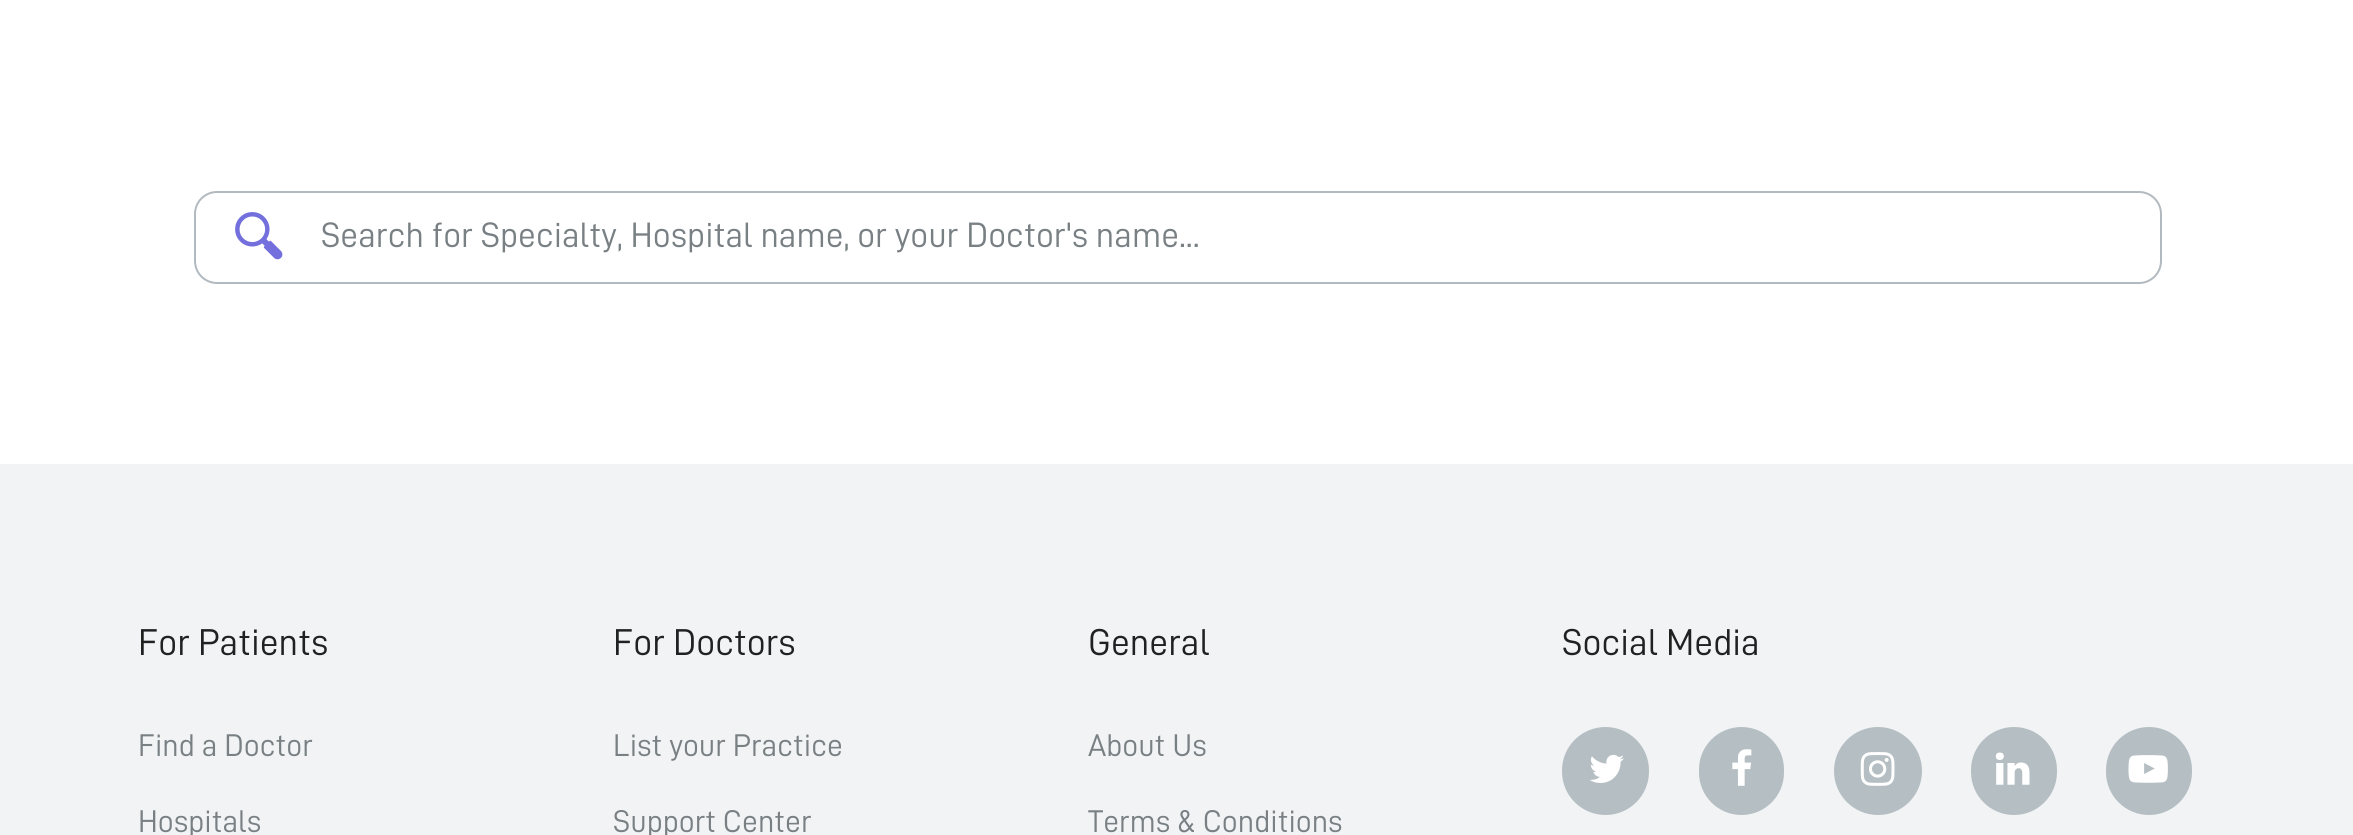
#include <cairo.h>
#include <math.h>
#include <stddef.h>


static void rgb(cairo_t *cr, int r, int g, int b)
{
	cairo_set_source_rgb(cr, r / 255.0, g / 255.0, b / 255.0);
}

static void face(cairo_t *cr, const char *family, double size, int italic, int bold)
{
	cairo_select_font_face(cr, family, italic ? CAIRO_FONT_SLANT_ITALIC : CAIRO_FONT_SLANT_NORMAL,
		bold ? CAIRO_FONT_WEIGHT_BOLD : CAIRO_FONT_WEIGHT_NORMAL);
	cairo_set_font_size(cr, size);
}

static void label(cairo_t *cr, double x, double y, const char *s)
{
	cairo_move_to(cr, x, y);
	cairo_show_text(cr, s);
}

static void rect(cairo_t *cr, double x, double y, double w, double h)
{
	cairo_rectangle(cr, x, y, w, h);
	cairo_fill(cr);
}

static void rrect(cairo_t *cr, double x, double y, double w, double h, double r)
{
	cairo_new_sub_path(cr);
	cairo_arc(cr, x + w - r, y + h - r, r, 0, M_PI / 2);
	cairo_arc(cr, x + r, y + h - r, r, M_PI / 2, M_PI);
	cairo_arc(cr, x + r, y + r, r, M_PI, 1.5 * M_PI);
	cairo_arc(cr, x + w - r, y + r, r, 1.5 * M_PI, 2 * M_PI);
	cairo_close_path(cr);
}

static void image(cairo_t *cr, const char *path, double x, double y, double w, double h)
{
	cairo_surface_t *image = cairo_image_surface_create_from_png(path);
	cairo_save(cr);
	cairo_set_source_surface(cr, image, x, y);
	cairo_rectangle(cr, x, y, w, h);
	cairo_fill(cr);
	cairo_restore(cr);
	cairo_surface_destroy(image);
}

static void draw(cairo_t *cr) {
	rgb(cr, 255, 255, 255);
	cairo_paint(cr);
	rrect(cr, 195, 192, 1966, 91, 22);
	rgb(cr, 178, 186, 191);
	cairo_stroke(cr);
	image(cr, "image0.png", 235, 212, 48, 48);
	face(cr, "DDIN", 35.4, 0, 0);
	rgb(cr, 121, 128, 132);
	label(cr, 321, 247, "Search for Specialty, Hospital name, or your Doctor's name...");
	rgb(cr, 241, 243, 245);
	rect(cr, 0, 464, 2353, 371);
	face(cr, "DDIN", 37.5, 0, 0);
	rgb(cr, 33, 33, 33);
	label(cr, 138, 655, "For Patients");
	face(cr, "DDIN", 31.5, 0, 0);
	rgb(cr, 121, 128, 132);
	label(cr, 138, 756, "Find a Doctor");
	label(cr, 138, 832, "Hospitals");
	face(cr, "DDIN", 37.5, 0, 0);
	rgb(cr, 33, 33, 33);
	label(cr, 613, 655, "For Doctors");
	face(cr, "DDIN", 31.5, 0, 0);
	rgb(cr, 121, 128, 132);
	label(cr, 613, 756, "List your Practice");
	label(cr, 613, 832, "Support Center");
	face(cr, "DDIN", 37.5, 0, 0);
	rgb(cr, 33, 33, 33);
	label(cr, 1088, 655, "General");
	face(cr, "DDIN", 31.5, 0, 0);
	rgb(cr, 121, 128, 132);
	label(cr, 1088, 756, "About Us");
	label(cr, 1088, 832, "Terms & Conditions");
	face(cr, "DDIN", 37.5, 0, 0);
	rgb(cr, 33, 33, 33);
	label(cr, 1562, 655, "Social Media");
	rgb(cr, 181, 190, 194);
	rrect(cr, 1562, 727, 87, 88, 43.5);
	cairo_fill(cr);
	image(cr, "image1.png", 1589, 754, 35, 29);
	rrect(cr, 1699, 727, 85, 88, 42.5);
	cairo_fill(cr);
	image(cr, "image2.png", 1732, 749, 20, 37);
	cairo_arc(cr, 1878, 771, 44, 0, 2 * M_PI);
	cairo_fill(cr);
	image(cr, "image3.png", 1860, 752, 35, 34);
	rrect(cr, 1971, 727, 86, 88, 43);
	cairo_fill(cr);
	image(cr, "image4.png", 1995, 752, 35, 33);
	rrect(cr, 2106, 727, 86, 88, 43);
	cairo_fill(cr);
	image(cr, "image5.png", 2128, 755, 40, 28);
}

int main(void) {
	cairo_surface_t *surface = cairo_image_surface_create(CAIRO_FORMAT_RGB24, 2353, 835);
	cairo_t *cr = cairo_create(surface);
	cairo_font_options_t *options = cairo_font_options_create();
	cairo_font_options_set_hint_metrics(options, CAIRO_HINT_METRICS_OFF);
	cairo_font_options_set_hint_style(options, CAIRO_HINT_STYLE_NONE);
	cairo_set_font_options(cr, options);
	cairo_set_miter_limit(cr, 4);
	draw(cr);
	cairo_surface_write_to_png(surface, "render.png");
	cairo_font_options_destroy(options);
	cairo_destroy(cr);
	cairo_surface_destroy(surface);
	return 0;
}
